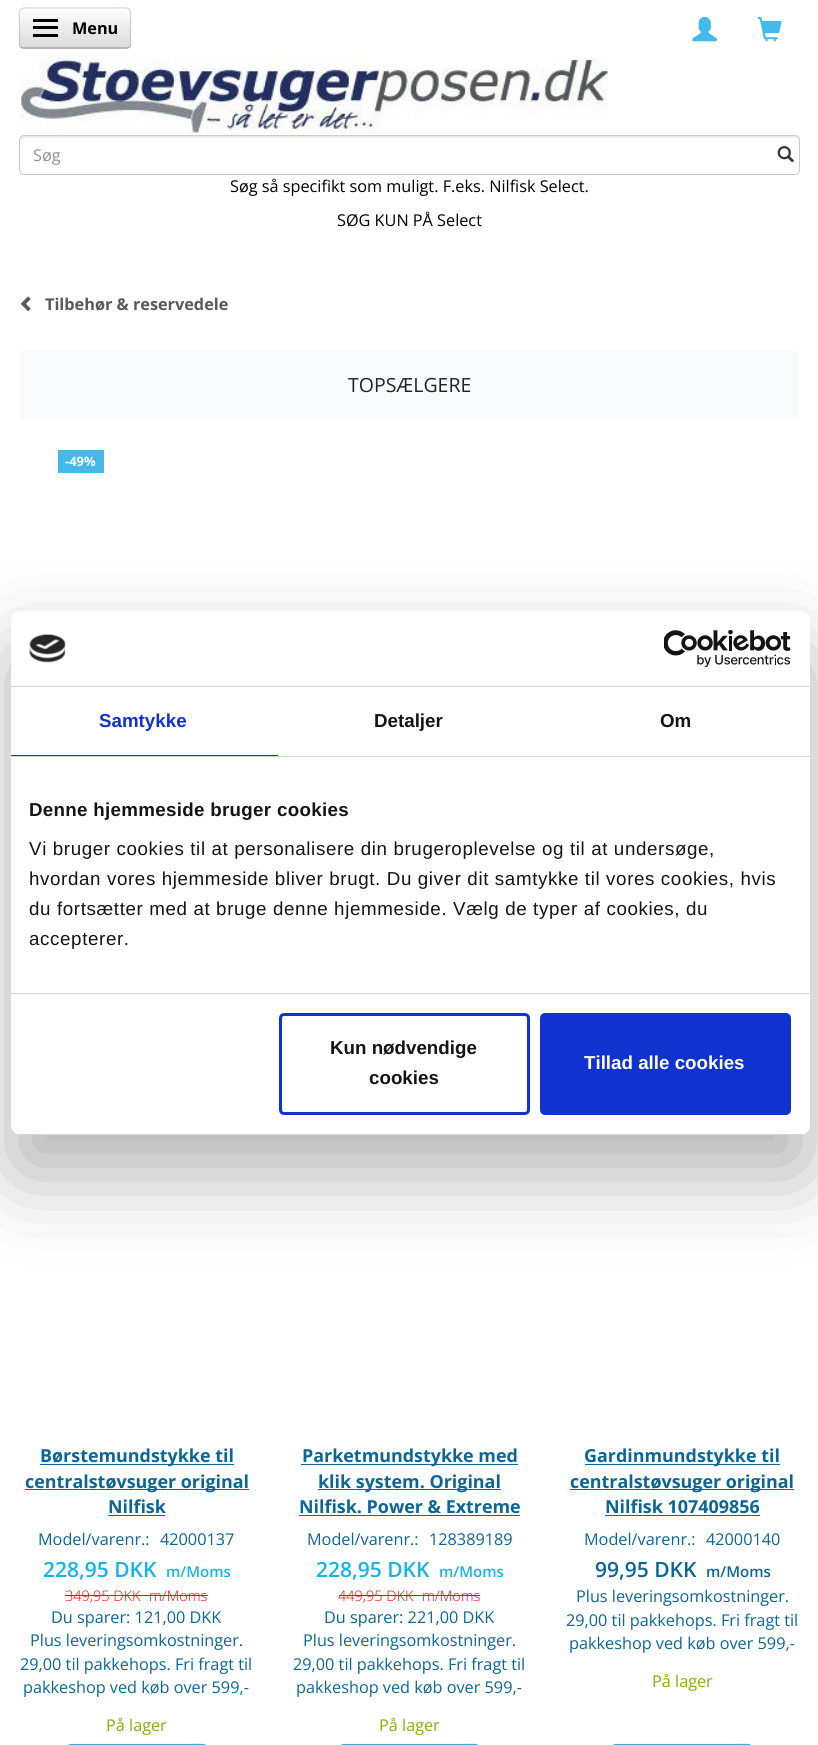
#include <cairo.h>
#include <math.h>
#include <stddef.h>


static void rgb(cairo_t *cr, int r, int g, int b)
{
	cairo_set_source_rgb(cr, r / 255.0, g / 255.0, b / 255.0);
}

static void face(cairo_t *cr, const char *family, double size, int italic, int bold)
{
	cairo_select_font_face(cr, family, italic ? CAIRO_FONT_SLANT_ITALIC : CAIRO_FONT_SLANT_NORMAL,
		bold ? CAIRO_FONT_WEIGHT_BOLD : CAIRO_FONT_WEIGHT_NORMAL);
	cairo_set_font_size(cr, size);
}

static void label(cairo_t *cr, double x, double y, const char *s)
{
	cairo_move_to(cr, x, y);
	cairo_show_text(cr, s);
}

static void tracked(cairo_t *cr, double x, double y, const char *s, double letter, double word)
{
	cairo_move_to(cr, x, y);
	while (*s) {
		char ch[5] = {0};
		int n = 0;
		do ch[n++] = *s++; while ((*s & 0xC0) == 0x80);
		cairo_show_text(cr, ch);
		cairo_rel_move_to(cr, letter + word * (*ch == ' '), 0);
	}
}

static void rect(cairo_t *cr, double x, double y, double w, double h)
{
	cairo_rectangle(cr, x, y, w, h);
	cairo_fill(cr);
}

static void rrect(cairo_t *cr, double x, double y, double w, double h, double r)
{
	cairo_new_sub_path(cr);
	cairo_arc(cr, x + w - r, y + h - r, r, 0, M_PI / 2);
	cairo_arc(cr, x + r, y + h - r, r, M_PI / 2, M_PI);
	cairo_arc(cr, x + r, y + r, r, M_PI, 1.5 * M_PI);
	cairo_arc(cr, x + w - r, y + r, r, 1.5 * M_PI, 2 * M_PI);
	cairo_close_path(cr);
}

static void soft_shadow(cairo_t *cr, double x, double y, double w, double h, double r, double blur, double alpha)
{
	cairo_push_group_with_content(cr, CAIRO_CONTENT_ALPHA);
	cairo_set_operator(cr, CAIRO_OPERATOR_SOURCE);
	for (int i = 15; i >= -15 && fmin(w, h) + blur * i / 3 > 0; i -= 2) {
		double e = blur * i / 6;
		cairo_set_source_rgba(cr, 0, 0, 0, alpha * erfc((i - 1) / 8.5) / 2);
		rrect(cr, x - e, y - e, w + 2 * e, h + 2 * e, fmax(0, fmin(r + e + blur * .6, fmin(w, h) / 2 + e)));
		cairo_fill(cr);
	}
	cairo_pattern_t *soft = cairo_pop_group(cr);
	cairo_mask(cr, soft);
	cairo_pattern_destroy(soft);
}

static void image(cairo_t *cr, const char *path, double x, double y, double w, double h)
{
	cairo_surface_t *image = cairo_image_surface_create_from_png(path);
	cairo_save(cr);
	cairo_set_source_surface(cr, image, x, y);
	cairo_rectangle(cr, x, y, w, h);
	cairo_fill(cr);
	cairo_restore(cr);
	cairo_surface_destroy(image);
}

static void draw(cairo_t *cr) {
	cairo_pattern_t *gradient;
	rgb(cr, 255, 255, 255);
	cairo_paint(cr);
	gradient = cairo_pattern_create_linear(75, 7.5, 75, 49);
	cairo_pattern_add_color_stop_rgba(gradient, 0, 1, 1, 1, 1);
	cairo_pattern_add_color_stop_rgba(gradient, 1, 0.851, 0.851, 0.851, 1);
	cairo_set_source(cr, gradient);
	cairo_pattern_destroy(gradient);
	rrect(cr, 19, 8, 112, 41, 5);
	cairo_fill(cr);
	cairo_new_path(cr);
	cairo_move_to(cr, 129.5, 47);
	cairo_line_to(cr, 126.5, 48);
	cairo_line_to(cr, 23.5, 48);
	cairo_line_to(cr, 20.5, 47);
	rgb(cr, 163, 163, 163);
	cairo_set_line_width(cr, 1.2);
	cairo_stroke(cr);
	cairo_new_path(cr);
	cairo_move_to(cr, 20.5, 47);
	cairo_curve_to(cr, 18.5, 45, 19.5, 41, 19.5, 38.5);
	cairo_line_to(cr, 19.5, 28);
	cairo_curve_to(cr, 19.5, 4.5, 16, 8, 41, 8);
	cairo_line_to(cr, 109, 8);
	cairo_curve_to(cr, 134, 8, 130.5, 4.5, 130.5, 28);
	cairo_line_to(cr, 130.5, 38.5);
	cairo_curve_to(cr, 130.5, 41, 131.5, 45, 129.5, 47);
	cairo_set_source_rgba(cr, 0, 0, 0, 0.15);
	cairo_stroke(cr);
	rgb(cr, 0, 0, 0);
	rect(cr, 33, 19, 25, 3);
	rect(cr, 33, 26, 25, 3);
	rect(cr, 33, 34, 25, 3);
	face(cr, "Open Sans", 16.25, 0, 1);
	label(cr, 72, 34, "Menu");
	image(cr, "image0.png", 692, 16, 25, 26);
	image(cr, "image1.png", 757, 16, 25, 26);
	image(cr, "image2.png", 19, 56, 589, 79);
	rgb(cr, 236, 236, 236);
	cairo_new_path(cr);
	cairo_move_to(cr, 24, 138);
	cairo_line_to(cr, 795, 138);
	cairo_curve_to(cr, 797, 138, 799, 139, 799, 141);
	cairo_line_to(cr, 799, 140);
	cairo_curve_to(cr, 799, 138, 797, 136, 795, 136);
	cairo_line_to(cr, 24, 136);
	cairo_curve_to(cr, 22, 136, 20, 138, 20, 140);
	cairo_line_to(cr, 20, 141);
	cairo_curve_to(cr, 20, 139, 22, 138, 24, 138);
	cairo_close_path(cr);
	cairo_fill(cr);
	rrect(cr, 19.5, 135.5, 780, 39, 4.5);
	rgb(cr, 204, 204, 204);
	cairo_set_line_width(cr, 1);
	cairo_stroke(cr);
	face(cr, "Open Sans", 16.25, 0, 0);
	rgb(cr, 145, 145, 145);
	label(cr, 33, 161, "Søg");
	image(cr, "image3.png", 777, 146, 17, 17);
	rgb(cr, 0, 0, 0);
	label(cr, 230, 192, "Søg så specifikt som muligt. F.eks. Nilfisk Select.");
	label(cr, 337, 226, "SØG KUN PÅ Select");
	image(cr, "image4.png", 20, 296, 11, 16);
	face(cr, "Open Sans", 16.25, 0, 1);
	rgb(cr, 89, 89, 89);
	label(cr, 45, 310, "Tilbehør & reservedele");
	rgb(cr, 247, 251, 252);
	rect(cr, 20, 351, 779, 68);
	face(cr, "Open Sans", 19.5, 0, 0);
	rgb(cr, 34, 34, 34);
	label(cr, 348, 392, "TOPSÆLGERE");
	rgb(cr, 68, 185, 235);
	rect(cr, 58, 450, 46, 23);
	face(cr, "Open Sans", 13, 0, 1);
	rgb(cr, 255, 255, 255);
	label(cr, 65, 466, "-49%");
	rgb(cr, 11, 102, 150);
	rect(cr, 40, 1464, 194, 1);
	face(cr, "Open Sans", 17.9, 0, 1);
	label(cr, 40, 1462, "Børstemundstykke til");
	rect(cr, 25, 1489, 224, 1);
	label(cr, 25, 1488, "centralstøvsuger original");
	label(cr, 108, 1513, "Nilfisk");
	rect(cr, 108, 1515, 57, 1);
	face(cr, "Open Sans", 16.25, 0, 0);
	label(cr, 38, 1545, "Model/varenr.:");
	label(cr, 160, 1545, "42000137");
	face(cr, "Open Sans SemiBold", 21, 0, 0);
	rgb(cr, 21, 180, 230);
	label(cr, 43, 1577, "228,95 DKK");
	face(cr, "Open Sans SemiBold", 15, 0, 0);
	label(cr, 166, 1577, "m/Moms");
	face(cr, "Open Sans Light", 14.5, 0, 0);
	rgb(cr, 255, 0, 15);
	label(cr, 65, 1601, "349,95 DKK");
	rect(cr, 65, 1595, 80, 1);
	label(cr, 149, 1601, "m/Moms");
	rect(cr, 145, 1595, 63, 1);
	face(cr, "Open Sans", 16.25, 0, 0);
	rgb(cr, 11, 102, 150);
	label(cr, 51, 1623, "Du sparer: 121,00 DKK");
	label(cr, 30, 1646, "Plus leveringsomkostninger.");
	label(cr, 20, 1670, "29,00 til pakkehops. Fri fragt til");
	label(cr, 23, 1693, "pakkeshop ved køb over 599,-");
	rgb(cr, 129, 177, 6);
	label(cr, 106, 1731, "På lager");
	rgb(cr, 68, 185, 235);
	rrect(cr, 66, 1744, 142, 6, 5);
	cairo_fill(cr);
	gradient = cairo_pattern_create_linear(137, 1744, 137, 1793);
	cairo_pattern_add_color_stop_rgba(gradient, 0, 1, 1, 1, 0.1);
	cairo_pattern_add_color_stop_rgba(gradient, 1, 0, 0, 0, 0.15);
	cairo_set_source(cr, gradient);
	cairo_pattern_destroy(gradient);
	rrect(cr, 66, 1744, 142, 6, 5);
	cairo_fill(cr);
	cairo_new_path(cr);
	cairo_move_to(cr, 68, 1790.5);
	cairo_curve_to(cr, 66, 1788.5, 67, 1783.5, 67, 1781);
	cairo_line_to(cr, 67, 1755);
	cairo_curve_to(cr, 67, 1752, 65.5, 1744.5, 71, 1744.5);
	cairo_line_to(cr, 180.5, 1744.5);
	cairo_curve_to(cr, 211.5, 1744.5, 207, 1739, 207, 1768);
	cairo_line_to(cr, 207, 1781);
	cairo_curve_to(cr, 207, 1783.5, 208, 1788.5, 205.5, 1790.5);
	cairo_set_source_rgba(cr, 0, 0, 0, 0.15);
	cairo_set_line_width(cr, 1.2);
	cairo_stroke(cr);
	rgb(cr, 11, 102, 150);
	rect(cr, 301, 1464, 217, 1);
	face(cr, "Open Sans", 17.9, 0, 1);
	label(cr, 302, 1462, "Parketmundstykke med");
	rect(cr, 318, 1489, 183, 1);
	label(cr, 318, 1488, "klik system. Original");
	label(cr, 299, 1513, "Nilfisk. Power & Extreme");
	rect(cr, 299, 1515, 221, 1);
	face(cr, "Open Sans", 16.25, 0, 0);
	label(cr, 307, 1545, "Model/varenr.:");
	label(cr, 429, 1545, "128389189");
	face(cr, "Open Sans SemiBold", 21, 0, 0);
	rgb(cr, 21, 180, 230);
	label(cr, 316, 1577, "228,95 DKK");
	face(cr, "Open Sans SemiBold", 15, 0, 0);
	label(cr, 439, 1577, "m/Moms");
	face(cr, "Open Sans Light", 14.5, 0, 0);
	rgb(cr, 255, 0, 15);
	label(cr, 338, 1601, "449,95 DKK");
	rect(cr, 339, 1595, 79, 1);
	label(cr, 422, 1601, "m/Moms");
	rect(cr, 418, 1595, 62, 1);
	face(cr, "Open Sans", 16.25, 0, 0);
	rgb(cr, 11, 102, 150);
	label(cr, 324, 1623, "Du sparer: 221,00 DKK");
	label(cr, 303, 1646, "Plus leveringsomkostninger.");
	label(cr, 293, 1670, "29,00 til pakkehops. Fri fragt til");
	label(cr, 296, 1693, "pakkeshop ved køb over 599,-");
	rgb(cr, 129, 177, 6);
	label(cr, 379, 1731, "På lager");
	rgb(cr, 68, 185, 235);
	rrect(cr, 339, 1744, 141, 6, 5);
	cairo_fill(cr);
	gradient = cairo_pattern_create_linear(409, 1744, 409, 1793);
	cairo_pattern_add_color_stop_rgba(gradient, 0, 1, 1, 1, 0.1);
	cairo_pattern_add_color_stop_rgba(gradient, 1, 0, 0, 0, 0.15);
	cairo_set_source(cr, gradient);
	cairo_pattern_destroy(gradient);
	rrect(cr, 339, 1744, 141, 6, 5);
	cairo_fill(cr);
	cairo_new_path(cr);
	cairo_move_to(cr, 340.5, 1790.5);
	cairo_curve_to(cr, 338.5, 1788.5, 339.5, 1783.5, 339.5, 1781);
	cairo_line_to(cr, 339.5, 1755);
	cairo_curve_to(cr, 339.5, 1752, 338, 1744.5, 344, 1744.5);
	cairo_line_to(cr, 453, 1744.5);
	cairo_curve_to(cr, 484, 1744.5, 479.5, 1739, 479.5, 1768);
	cairo_line_to(cr, 479.5, 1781);
	cairo_curve_to(cr, 479.5, 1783.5, 480.5, 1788.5, 478, 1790.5);
	cairo_set_source_rgba(cr, 0, 0, 0, 0.15);
	cairo_stroke(cr);
	rgb(cr, 11, 102, 150);
	rect(cr, 585, 1464, 195, 1);
	face(cr, "Open Sans", 17.9, 0, 1);
	label(cr, 584, 1462, "Gardinmundstykke til");
	rect(cr, 570, 1489, 224, 1);
	label(cr, 570, 1488, "centralstøvsuger original");
	label(cr, 605, 1513, "Nilfisk 107409856");
	rect(cr, 605, 1515, 155, 1);
	face(cr, "Open Sans", 16.25, 0, 0);
	label(cr, 584, 1545, "Model/varenr.:");
	label(cr, 706, 1545, "42000140");
	face(cr, "Open Sans SemiBold", 21, 0, 0);
	label(cr, 595, 1577, "99,95 DKK");
	face(cr, "Open Sans SemiBold", 15, 0, 0);
	label(cr, 706, 1577, "m/Moms");
	face(cr, "Open Sans", 16.25, 0, 0);
	label(cr, 576, 1602, "Plus leveringsomkostninger.");
	label(cr, 566, 1626, "29,00 til pakkehops. Fri fragt til");
	label(cr, 569, 1649, "pakkeshop ved køb over 599,-");
	rgb(cr, 129, 177, 6);
	label(cr, 652, 1687, "På lager");
	rgb(cr, 68, 185, 235);
	rrect(cr, 611, 1744, 142, 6, 5);
	cairo_fill(cr);
	gradient = cairo_pattern_create_linear(682, 1744, 682, 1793);
	cairo_pattern_add_color_stop_rgba(gradient, 0, 1, 1, 1, 0.1);
	cairo_pattern_add_color_stop_rgba(gradient, 1, 0, 0, 0, 0.15);
	cairo_set_source(cr, gradient);
	cairo_pattern_destroy(gradient);
	rrect(cr, 611, 1744, 142, 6, 5);
	cairo_fill(cr);
	cairo_new_path(cr);
	cairo_move_to(cr, 613, 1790.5);
	cairo_curve_to(cr, 611, 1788.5, 612, 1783.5, 612, 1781);
	cairo_line_to(cr, 612, 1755);
	cairo_curve_to(cr, 612, 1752, 610.5, 1744.5, 616, 1744.5);
	cairo_line_to(cr, 725.5, 1744.5);
	cairo_curve_to(cr, 756.5, 1744.5, 752, 1739, 752, 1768);
	cairo_line_to(cr, 752, 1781);
	cairo_curve_to(cr, 752, 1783.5, 753, 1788.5, 750.5, 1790.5);
	cairo_set_source_rgba(cr, 0, 0, 0, 0.15);
	cairo_stroke(cr);
	rgb(cr, 0, 0, 0);
	soft_shadow(cr, 11, 651, 799, 524, 10, 42.5, 0.3);
	rgb(cr, 255, 255, 255);
	rrect(cr, 11, 611, 799, 524, 10);
	cairo_fill(cr);
	rgb(cr, 214, 214, 214);
	rect(cr, 11, 686, 799, 1);
	image(cr, "image5.png", 29, 634, 37, 29);
	image(cr, "image6.png", 664, 630, 127, 38);
	rect(cr, 11, 756, 799, 1);
	rgb(cr, 16, 50, 207);
	rect(cr, 11, 755, 267, 1);
	face(cr, "Liberation Sans", 18.75, 0, 1);
	label(cr, 99, 727, "Samtykke");
	rgb(cr, 20, 20, 20);
	label(cr, 374, 727, "Detaljer");
	label(cr, 660, 727, "Om");
	rgb(cr, 214, 214, 214);
	rect(cr, 11, 993, 799, 1);
	rgb(cr, 20, 20, 20);
	tracked(cr, 29, 816, "Denne hjemmeside bruger cookies", 0.3, 0);
	face(cr, "Liberation Sans", 18.75, 0, 0);
	tracked(cr, 29, 855, "Vi bruger cookies til at personalisere din brugeroplevelse og til at undersøge,", 0.62, 0);
	tracked(cr, 29, 885, "hvordan vores hjemmeside bliver brugt. Du giver dit samtykke til vores cookies, hvis", 0.62, 0);
	tracked(cr, 29, 915, "du fortsætter med at bruge denne hjemmeside. Vælg de typer af cookies, du", 0.62, 0);
	tracked(cr, 29, 945, "accepterer.", 0.62, 0);
	cairo_save(cr);
	rrect(cr, 11, 611, 799, 524, 10);
	cairo_clip(cr);
	rgb(cr, 214, 214, 214);
	rect(cr, 11, 1134, 799, 1);
	cairo_restore(cr);
	rrect(cr, 280.5, 1014.5, 248, 99, 3.5);
	rgb(cr, 16, 50, 207);
	cairo_set_line_width(cr, 3);
	cairo_stroke(cr);
	face(cr, "Liberation Sans", 18.75, 0, 1);
	rgb(cr, 20, 20, 20);
	label(cr, 330, 1054, "Kun nødvendige");
	label(cr, 369, 1084, "cookies");
	rgb(cr, 16, 50, 207);
	rrect(cr, 541.5, 1014.5, 248, 99, 3.5);
	cairo_fill_preserve(cr);
	cairo_stroke(cr);
	rgb(cr, 255, 255, 255);
	label(cr, 584, 1069, "Tillad alle cookies");
}

int main(void) {
	cairo_surface_t *surface = cairo_image_surface_create(CAIRO_FORMAT_RGB24, 818, 1745);
	cairo_t *cr = cairo_create(surface);
	cairo_font_options_t *options = cairo_font_options_create();
	cairo_font_options_set_hint_metrics(options, CAIRO_HINT_METRICS_OFF);
	cairo_font_options_set_hint_style(options, CAIRO_HINT_STYLE_NONE);
	cairo_set_font_options(cr, options);
	cairo_set_miter_limit(cr, 4);
	draw(cr);
	cairo_surface_write_to_png(surface, "render.png");
	cairo_font_options_destroy(options);
	cairo_destroy(cr);
	cairo_surface_destroy(surface);
	return 0;
}
